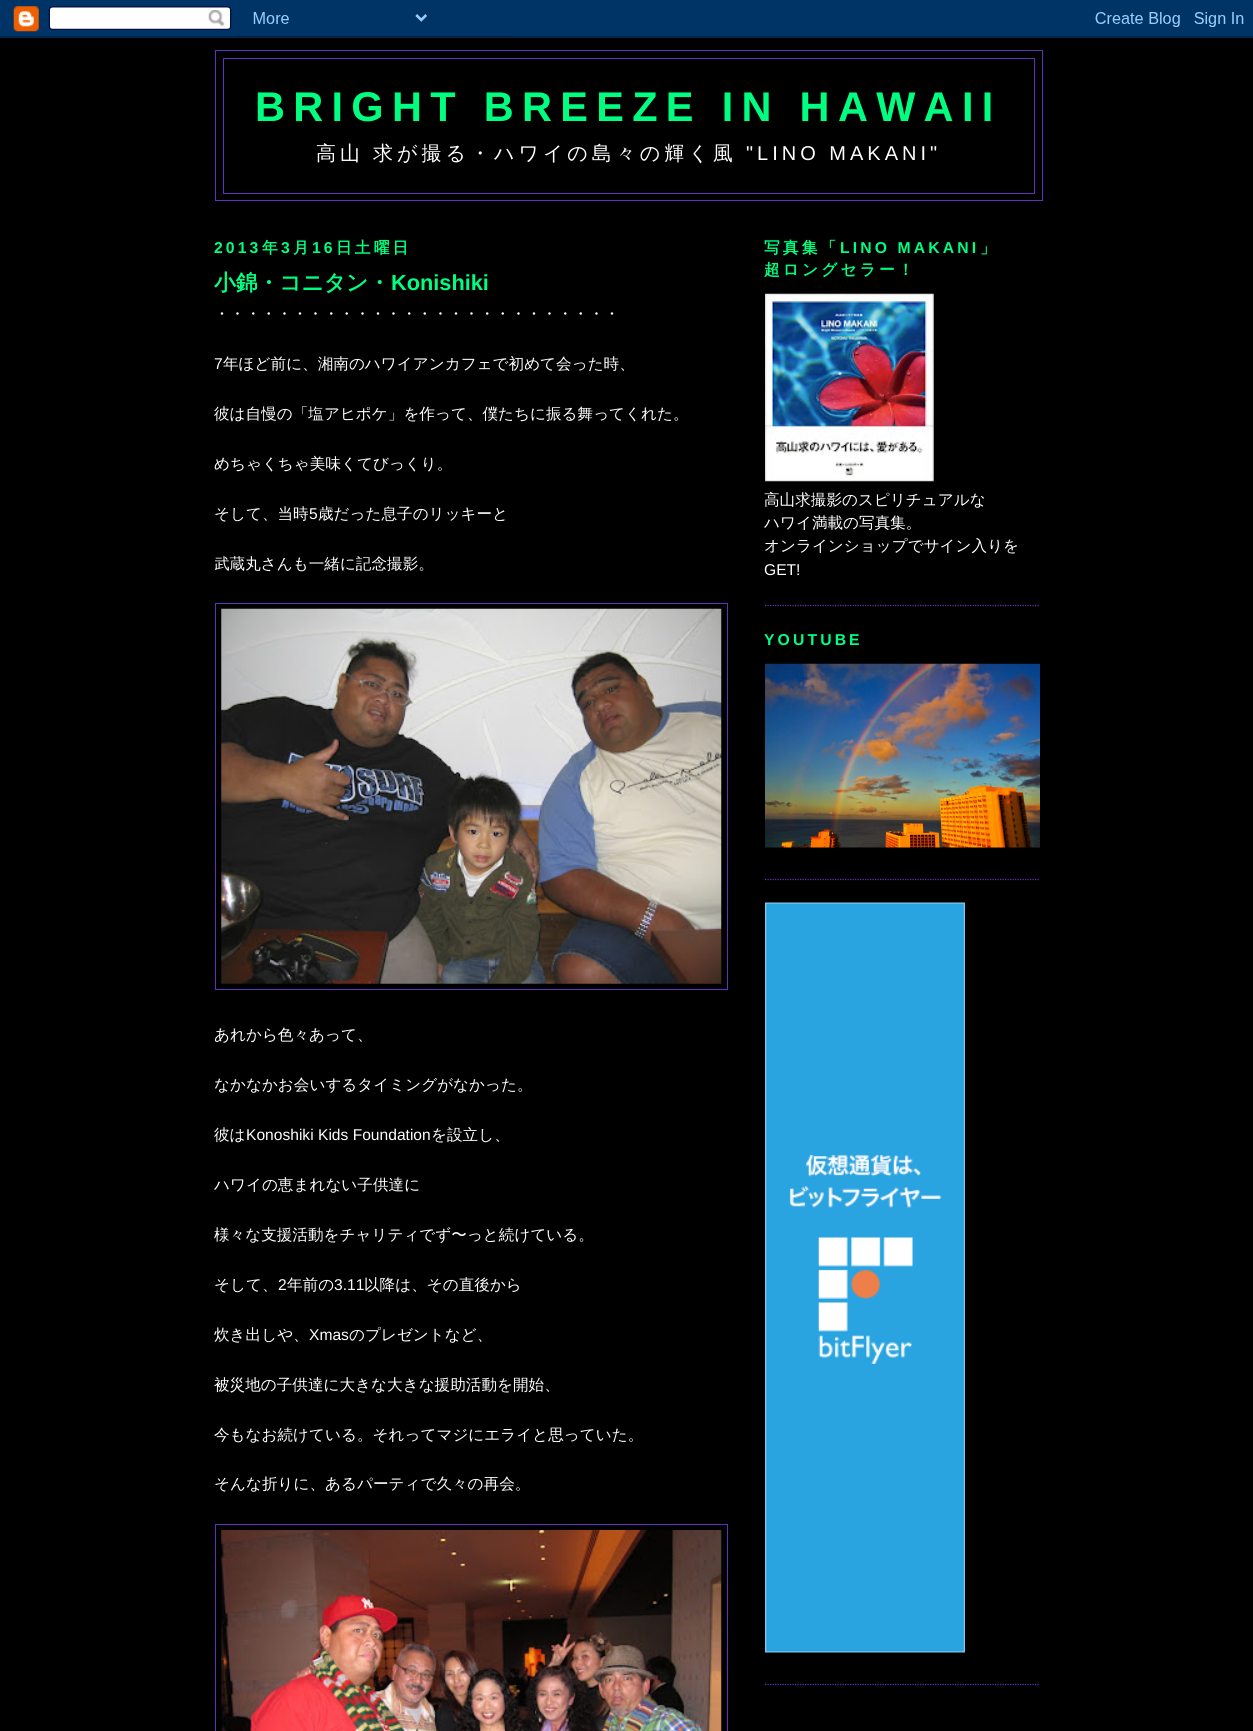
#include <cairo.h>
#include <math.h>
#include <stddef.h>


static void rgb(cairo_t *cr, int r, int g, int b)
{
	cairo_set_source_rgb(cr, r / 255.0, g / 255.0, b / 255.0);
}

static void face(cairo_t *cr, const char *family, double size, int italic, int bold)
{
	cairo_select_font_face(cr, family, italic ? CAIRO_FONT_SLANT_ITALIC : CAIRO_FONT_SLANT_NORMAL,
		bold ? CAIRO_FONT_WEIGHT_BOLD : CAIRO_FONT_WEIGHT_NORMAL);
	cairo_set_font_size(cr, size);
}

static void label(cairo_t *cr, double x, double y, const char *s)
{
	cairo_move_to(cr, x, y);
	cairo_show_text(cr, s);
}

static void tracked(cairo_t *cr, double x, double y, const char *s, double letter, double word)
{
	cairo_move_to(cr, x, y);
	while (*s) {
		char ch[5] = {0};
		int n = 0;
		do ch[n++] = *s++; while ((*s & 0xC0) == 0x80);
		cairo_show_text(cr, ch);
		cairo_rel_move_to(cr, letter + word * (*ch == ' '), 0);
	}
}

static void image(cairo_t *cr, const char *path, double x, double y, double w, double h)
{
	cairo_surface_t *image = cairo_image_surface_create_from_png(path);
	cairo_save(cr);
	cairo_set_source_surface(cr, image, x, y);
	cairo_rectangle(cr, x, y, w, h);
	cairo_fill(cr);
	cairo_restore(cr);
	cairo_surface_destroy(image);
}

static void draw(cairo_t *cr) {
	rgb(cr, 0, 0, 0);
	cairo_paint(cr);
	image(cr, "image0.png", 0, 0, 1253, 38);
	cairo_rectangle(cr, 215.5, 50.5, 827, 150);
	rgb(cr, 97, 49, 189);
	cairo_set_line_width(cr, 1);
	cairo_stroke(cr);
	cairo_rectangle(cr, 223.5, 58.5, 811, 135);
	cairo_stroke(cr);
	face(cr, "Liberation Sans", 41.5, 0, 1);
	rgb(cr, 0, 255, 128);
	tracked(cr, 255, 121, "BRIGHT BREEZE IN HAWAII", 8.3, 0);
	face(cr, "WenQuanYi Zen Hei Medium", 20, 0, 0);
	rgb(cr, 255, 255, 255);
	tracked(cr, 316, 160, "高山", 4, 0);
	tracked(cr, 373, 160, "求が撮る・ハワイの島々の輝く風", 4, 0);
	face(cr, "Liberation Sans", 20, 0, 0);
	tracked(cr, 746, 160, "\"LINO MAKANI\"", 4, 0);
	face(cr, "Liberation Sans", 15.75, 0, 1);
	rgb(cr, 0, 255, 128);
	tracked(cr, 214, 253, "2013", 3.1, 0);
	face(cr, "WenQuanYi Zen Hei", 15.75, 0, 1);
	tracked(cr, 262, 253, "年", 3.1, 0);
	face(cr, "Liberation Sans", 15.75, 0, 1);
	tracked(cr, 281, 253, "3", 3.1, 0);
	face(cr, "WenQuanYi Zen Hei", 15.75, 0, 1);
	tracked(cr, 293, 253, "月", 3.1, 0);
	face(cr, "Liberation Sans", 15.75, 0, 1);
	tracked(cr, 312, 253, "16", 3.1, 0);
	face(cr, "WenQuanYi Zen Hei", 15.75, 0, 1);
	tracked(cr, 336, 253, "日土曜日", 3.1, 0);
	face(cr, "WenQuanYi Zen Hei", 21.75, 0, 1);
	label(cr, 214, 290, "小錦・コニタン・");
	face(cr, "Liberation Sans", 21.75, 0, 1);
	label(cr, 391, 290, "Konishiki");
	face(cr, "WenQuanYi Zen Hei Medium", 15.6, 0, 0);
	rgb(cr, 255, 255, 255);
	label(cr, 214, 319, "・・・・・・・・・・・・・・・・・・・・・・・・・・");
	face(cr, "Liberation Sans", 15.6, 0, 0);
	label(cr, 214, 369, "7");
	face(cr, "WenQuanYi Zen Hei Medium", 15.6, 0, 0);
	label(cr, 223, 369, "年ほど前に、湘南のハワイアンカフェで初めて会った時、");
	label(cr, 214, 419, "彼は自慢の「塩アヒポケ」を作って、僕たちに振る舞ってくれた。");
	label(cr, 214, 469, "めちゃくちゃ美味くてびっくり。");
	label(cr, 214, 519, "そして、当時");
	face(cr, "Liberation Sans", 15.6, 0, 0);
	label(cr, 309, 519, "5");
	face(cr, "WenQuanYi Zen Hei Medium", 15.6, 0, 0);
	label(cr, 318, 519, "歳だった息子のリッキーと");
	cairo_save(cr);
	cairo_rectangle(cr, 215, 214, 513, 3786);
	cairo_clip(cr);
	label(cr, 214, 569, "武蔵丸さんも一緒に記念撮影。");
	cairo_restore(cr);
	cairo_rectangle(cr, 215.5, 603.5, 512, 386);
	rgb(cr, 97, 49, 189);
	cairo_stroke(cr);
	image(cr, "image1.png", 221, 608, 501, 376);
	rgb(cr, 255, 255, 255);
	label(cr, 214, 1040, "あれから色々あって、");
	label(cr, 214, 1090, "なかなかお会いするタイミングがなかった。");
	label(cr, 214, 1140, "彼は");
	face(cr, "Liberation Sans", 15.6, 0, 0);
	label(cr, 246, 1140, "Konoshiki Kids Foundation");
	face(cr, "WenQuanYi Zen Hei Medium", 15.6, 0, 0);
	label(cr, 431, 1140, "を設立し、");
	label(cr, 214, 1190, "ハワイの恵まれない子供達に");
	label(cr, 214, 1240, "様々な支援活動をチャリティでず〜っと続けている。");
	label(cr, 214, 1290, "そして、");
	face(cr, "Liberation Sans", 15.6, 0, 0);
	label(cr, 278, 1290, "2");
	face(cr, "WenQuanYi Zen Hei Medium", 15.6, 0, 0);
	label(cr, 287, 1290, "年前の");
	face(cr, "Liberation Sans", 15.6, 0, 0);
	label(cr, 334, 1290, "3.11");
	face(cr, "WenQuanYi Zen Hei Medium", 15.6, 0, 0);
	label(cr, 364, 1290, "以降は、その直後から");
	label(cr, 214, 1340, "炊き出しや、");
	face(cr, "Liberation Sans", 15.6, 0, 0);
	label(cr, 309, 1340, "Xmas");
	face(cr, "WenQuanYi Zen Hei Medium", 15.6, 0, 0);
	label(cr, 349, 1340, "のプレゼントなど、");
	label(cr, 214, 1390, "被災地の子供達に大きな大きな援助活動を開始、");
	label(cr, 214, 1440, "今もなお続けている。それってマジにエライと思っていた。");
	label(cr, 214, 1489, "そんな折りに、あるパーティで久々の再会。");
	cairo_rectangle(cr, 215.5, 1524.5, 512, 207);
	rgb(cr, 97, 49, 189);
	cairo_stroke(cr);
	image(cr, "image2.png", 221, 1530, 501, 201);
	cairo_new_path(cr);
	cairo_move_to(cr, 765, 605.5);
	cairo_line_to(cr, 1040, 605.5);
	cairo_set_line_width(cr, 1.2);
	cairo_set_dash(cr, (double[]){1.25, 1.25}, 2, 0);
	cairo_stroke(cr);
	face(cr, "WenQuanYi Zen Hei", 15.75, 0, 1);
	rgb(cr, 0, 255, 128);
	tracked(cr, 764, 253, "写真集「", 3.1, 0);
	face(cr, "Liberation Sans", 15.75, 0, 1);
	tracked(cr, 840, 253, "LINO MAKANI", 3.1, 0);
	face(cr, "WenQuanYi Zen Hei", 15.75, 0, 1);
	tracked(cr, 980, 253, "」", 3.1, 0);
	tracked(cr, 764, 275, "超ロングセラー！", 3.1, 0);
	image(cr, "image3.png", 765, 293, 169, 189);
	face(cr, "WenQuanYi Zen Hei Medium", 15.6, 0, 0);
	rgb(cr, 255, 255, 255);
	label(cr, 764, 505, "高山求撮影のスピリチュアルな");
	label(cr, 764, 528, "ハワイ満載の写真集。");
	label(cr, 764, 551, "オンラインショップでサイン入りを");
	face(cr, "Liberation Sans", 15.6, 0, 0);
	label(cr, 764, 575, "GET!");
	cairo_new_path(cr);
	cairo_move_to(cr, 765, 879.5);
	cairo_line_to(cr, 1040, 879.5);
	rgb(cr, 97, 49, 189);
	cairo_stroke(cr);
	face(cr, "Liberation Sans", 15.75, 0, 1);
	rgb(cr, 0, 255, 128);
	tracked(cr, 764, 645, "YOUTUBE", 3.1, 0);
	image(cr, "image4.png", 765, 663, 275, 185);
	cairo_new_path(cr);
	cairo_move_to(cr, 765, 1684.5);
	cairo_line_to(cr, 1040, 1684.5);
	rgb(cr, 97, 49, 189);
	cairo_stroke(cr);
	image(cr, "image5.png", 765, 902, 200, 751);
}

int main(void) {
	cairo_surface_t *surface = cairo_image_surface_create(CAIRO_FORMAT_RGB24, 1253, 1731);
	cairo_t *cr = cairo_create(surface);
	cairo_font_options_t *options = cairo_font_options_create();
	cairo_font_options_set_hint_metrics(options, CAIRO_HINT_METRICS_OFF);
	cairo_font_options_set_hint_style(options, CAIRO_HINT_STYLE_NONE);
	cairo_set_font_options(cr, options);
	cairo_set_miter_limit(cr, 4);
	draw(cr);
	cairo_surface_write_to_png(surface, "render.png");
	cairo_font_options_destroy(options);
	cairo_destroy(cr);
	cairo_surface_destroy(surface);
	return 0;
}
